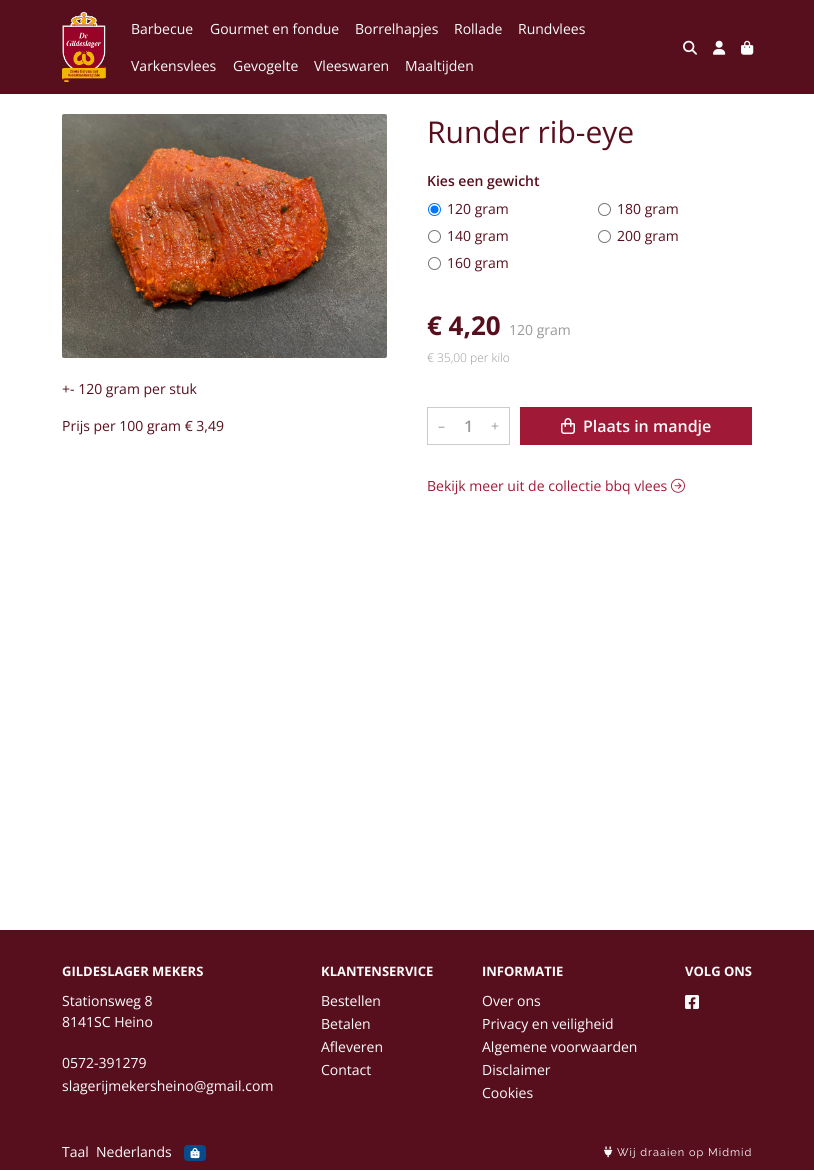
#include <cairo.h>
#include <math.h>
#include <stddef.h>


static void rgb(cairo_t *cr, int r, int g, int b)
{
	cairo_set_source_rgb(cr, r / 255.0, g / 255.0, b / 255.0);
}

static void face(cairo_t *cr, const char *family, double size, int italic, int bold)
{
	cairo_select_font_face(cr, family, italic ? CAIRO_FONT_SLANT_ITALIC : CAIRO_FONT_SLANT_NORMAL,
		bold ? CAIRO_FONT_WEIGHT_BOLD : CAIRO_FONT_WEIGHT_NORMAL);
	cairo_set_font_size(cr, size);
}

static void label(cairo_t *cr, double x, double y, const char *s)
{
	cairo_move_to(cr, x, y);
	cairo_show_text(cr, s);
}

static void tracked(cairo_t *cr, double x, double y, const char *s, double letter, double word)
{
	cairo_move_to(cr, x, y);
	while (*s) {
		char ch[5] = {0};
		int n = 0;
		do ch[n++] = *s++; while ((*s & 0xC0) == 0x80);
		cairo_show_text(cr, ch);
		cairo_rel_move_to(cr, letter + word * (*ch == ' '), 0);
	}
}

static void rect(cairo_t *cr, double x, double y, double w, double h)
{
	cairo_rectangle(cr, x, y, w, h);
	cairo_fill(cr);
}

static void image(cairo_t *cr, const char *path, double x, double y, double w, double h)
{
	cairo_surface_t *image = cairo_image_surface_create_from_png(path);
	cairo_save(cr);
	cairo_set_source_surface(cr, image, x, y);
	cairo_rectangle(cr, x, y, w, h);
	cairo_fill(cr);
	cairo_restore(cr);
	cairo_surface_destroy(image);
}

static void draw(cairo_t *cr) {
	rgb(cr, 255, 255, 255);
	cairo_paint(cr);
	rgb(cr, 87, 15, 29);
	rect(cr, 0, 0, 814, 94);
	image(cr, "image0.png", 62, 12, 45, 70);
	face(cr, "Open Sans", 14, 0, 0);
	rgb(cr, 251, 251, 251);
	label(cr, 131, 34, "Barbecue");
	label(cr, 210, 34, "Gourmet en fondue");
	label(cr, 355, 34, "Borrelhapjes");
	label(cr, 454, 34, "Rollade");
	label(cr, 518, 34, "Rundvlees");
	label(cr, 131, 71, "Varkensvlees");
	label(cr, 233, 71, "Gevogelte");
	label(cr, 314, 71, "Vleeswaren");
	label(cr, 405, 71, "Maaltijden");
	image(cr, "image1.png", 683, 40, 14, 15);
	image(cr, "image2.png", 713, 40, 13, 15);
	image(cr, "image3.png", 741, 40, 13, 15);
	image(cr, "image4.png", 62, 114, 325, 244);
	rgb(cr, 87, 15, 29);
	label(cr, 62, 394, "+- 120 gram per stuk");
	label(cr, 62, 431, "Prijs per 100 gram € 3,49");
	face(cr, "Open Sans", 30, 0, 0);
	label(cr, 427, 143, "Runder rib-eye");
	face(cr, "Open Sans SemiBold", 14, 0, 0);
	label(cr, 427, 186, "Kies een gewicht");
	cairo_new_path(cr);
	cairo_arc(cr, 434.5, 209.5, 6, 0, 2 * M_PI);
	rgb(cr, 0, 117, 255);
	cairo_set_line_width(cr, 1);
	cairo_stroke(cr);
	cairo_arc(cr, 434.5, 209.5, 4, 0, 2 * M_PI);
	cairo_fill(cr);
	face(cr, "Open Sans", 14, 0, 0);
	rgb(cr, 87, 15, 29);
	label(cr, 447, 214, "120 gram");
	cairo_new_path(cr);
	cairo_arc(cr, 604.5, 209.5, 6, 0, 2 * M_PI);
	rgb(cr, 118, 118, 118);
	cairo_stroke(cr);
	rgb(cr, 87, 15, 29);
	label(cr, 617, 214, "180 gram");
	cairo_new_path(cr);
	cairo_arc(cr, 434.5, 236.5, 6, 0, 2 * M_PI);
	rgb(cr, 118, 118, 118);
	cairo_stroke(cr);
	rgb(cr, 87, 15, 29);
	label(cr, 447, 241, "140 gram");
	cairo_new_path(cr);
	cairo_arc(cr, 604.5, 236.5, 6, 0, 2 * M_PI);
	rgb(cr, 118, 118, 118);
	cairo_stroke(cr);
	rgb(cr, 87, 15, 29);
	label(cr, 617, 241, "200 gram");
	cairo_new_path(cr);
	cairo_arc(cr, 434.5, 263.5, 6, 0, 2 * M_PI);
	rgb(cr, 118, 118, 118);
	cairo_stroke(cr);
	rgb(cr, 87, 15, 29);
	label(cr, 447, 268, "160 gram");
	face(cr, "Open Sans", 26, 0, 1);
	label(cr, 427, 335, "€ 4,20");
	face(cr, "Open Sans", 14, 0, 0);
	rgb(cr, 153, 153, 153);
	label(cr, 509, 335, "120 gram");
	face(cr, "Open Sans Light", 12, 0, 0);
	label(cr, 427, 362, "€ 35,00 per kilo");
	cairo_rectangle(cr, 427.5, 407.5, 82, 37);
	rgb(cr, 204, 204, 204);
	cairo_stroke(cr);
	face(cr, "Open Sans", 14, 0, 0);
	rgb(cr, 153, 153, 153);
	label(cr, 438, 431, "–");
	face(cr, "Open Sans SemiBold", 16, 0, 0);
	label(cr, 464, 432, "1");
	face(cr, "Open Sans", 14, 0, 0);
	label(cr, 491, 431, "+");
	rgb(cr, 160, 25, 54);
	rect(cr, 520, 407, 232, 38);
	image(cr, "image5.png", 561, 418, 14, 16);
	face(cr, "Open Sans SemiBold", 16, 0, 0);
	rgb(cr, 251, 251, 251);
	label(cr, 583, 432, "Plaats in mandje");
	face(cr, "Open Sans", 14, 0, 0);
	rgb(cr, 160, 25, 54);
	label(cr, 427, 491, "Bekijk meer uit de collectie bbq vlees");
	image(cr, "image6.png", 671, 478, 14, 15);
	rgb(cr, 87, 15, 29);
	rect(cr, 0, 930, 814, 240);
	face(cr, "Open Sans", 13, 0, 1);
	rgb(cr, 251, 251, 251);
	label(cr, 62, 976, "GILDESLAGER MEKERS");
	face(cr, "Open Sans", 14, 0, 0);
	label(cr, 62, 1006, "Stationsweg 8");
	label(cr, 62, 1027, "8141SC Heino");
	label(cr, 62, 1068, "0572-391279");
	label(cr, 62, 1091, "slagerijmekersheino@gmail.com");
	face(cr, "Open Sans", 13, 0, 1);
	label(cr, 321, 976, "KLANTENSERVICE");
	face(cr, "Open Sans", 14, 0, 0);
	label(cr, 321, 1006, "Bestellen");
	label(cr, 321, 1029, "Betalen");
	label(cr, 321, 1052, "Afleveren");
	label(cr, 321, 1075, "Contact");
	face(cr, "Open Sans", 13, 0, 1);
	label(cr, 482, 976, "INFORMATIE");
	face(cr, "Open Sans", 14, 0, 0);
	label(cr, 482, 1006, "Over ons");
	label(cr, 482, 1029, "Privacy en veiligheid");
	label(cr, 482, 1052, "Algemene voorwaarden");
	label(cr, 482, 1075, "Disclaimer");
	label(cr, 482, 1098, "Cookies");
	face(cr, "Open Sans", 13, 0, 1);
	label(cr, 685, 976, "VOLG ONS");
	image(cr, "image7.png", 685, 995, 14, 14);
	face(cr, "Open Sans", 14, 0, 0);
	label(cr, 62, 1157, "Taal");
	label(cr, 96, 1157, "Nederlands");
	image(cr, "image8.png", 184, 1145, 22, 16);
	image(cr, "image9.png", 604, 1146, 9, 12);
	face(cr, "Raleway", 11, 0, 0);
	tracked(cr, 617, 1156, "Wij draaien op Midmid", 1, 0);
}

int main(void) {
	cairo_surface_t *surface = cairo_image_surface_create(CAIRO_FORMAT_RGB24, 814, 1170);
	cairo_t *cr = cairo_create(surface);
	cairo_font_options_t *options = cairo_font_options_create();
	cairo_font_options_set_hint_metrics(options, CAIRO_HINT_METRICS_OFF);
	cairo_font_options_set_hint_style(options, CAIRO_HINT_STYLE_NONE);
	cairo_set_font_options(cr, options);
	cairo_set_miter_limit(cr, 4);
	draw(cr);
	cairo_surface_write_to_png(surface, "render.png");
	cairo_font_options_destroy(options);
	cairo_destroy(cr);
	cairo_surface_destroy(surface);
	return 0;
}
